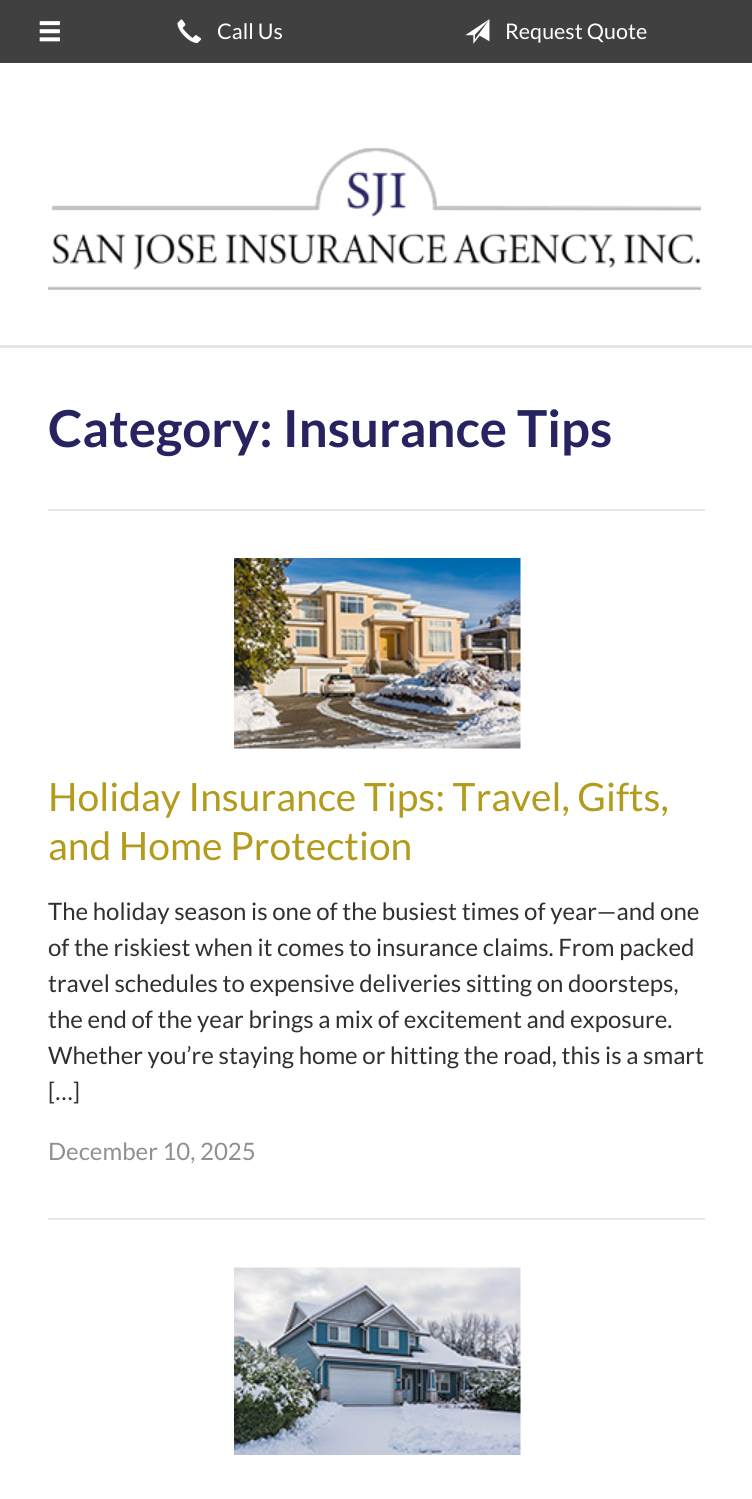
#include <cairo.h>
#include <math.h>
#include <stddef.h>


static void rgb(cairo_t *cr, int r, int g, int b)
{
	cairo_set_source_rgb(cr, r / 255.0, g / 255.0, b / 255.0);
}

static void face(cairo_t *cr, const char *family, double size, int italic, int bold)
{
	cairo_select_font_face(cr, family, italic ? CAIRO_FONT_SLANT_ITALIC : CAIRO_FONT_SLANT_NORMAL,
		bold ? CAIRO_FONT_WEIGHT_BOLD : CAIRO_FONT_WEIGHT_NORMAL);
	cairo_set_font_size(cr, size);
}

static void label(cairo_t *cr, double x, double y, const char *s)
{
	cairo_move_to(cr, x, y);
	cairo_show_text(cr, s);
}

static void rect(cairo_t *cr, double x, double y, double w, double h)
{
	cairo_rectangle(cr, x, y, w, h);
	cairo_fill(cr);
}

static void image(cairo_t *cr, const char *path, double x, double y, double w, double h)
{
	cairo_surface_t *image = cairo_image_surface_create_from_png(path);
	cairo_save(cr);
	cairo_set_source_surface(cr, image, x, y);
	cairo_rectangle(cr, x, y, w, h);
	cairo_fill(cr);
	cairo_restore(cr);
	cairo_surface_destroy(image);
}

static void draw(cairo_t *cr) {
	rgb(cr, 64, 64, 64);
	cairo_paint(cr);
	image(cr, "image0.png", 39, 21, 21, 21);
	image(cr, "image1.png", 177, 19, 25, 25);
	face(cr, "Lato", 21.5, 0, 0);
	rgb(cr, 255, 255, 255);
	label(cr, 217, 39, "Call Us");
	image(cr, "image2.png", 465, 19, 25, 25);
	label(cr, 505, 39, "Request Quote");
	rect(cr, 0, 63, 752, 282);
	rgb(cr, 230, 230, 230);
	rect(cr, 0, 345, 752, 3);
	image(cr, "image3.png", 48, 147, 654, 143);
	rgb(cr, 255, 255, 255);
	rect(cr, 0, 348, 752, 1151);
	face(cr, "Lato", 51, 0, 1);
	rgb(cr, 39, 35, 97);
	label(cr, 48, 447, "Category: Insurance Tips");
	rgb(cr, 230, 230, 230);
	rect(cr, 48, 509, 657, 2);
	rect(cr, 48, 1218, 657, 2);
	image(cr, "image4.png", 234, 558, 287, 191);
	face(cr, "Lato", 39, 0, 0);
	rgb(cr, 178, 155, 29);
	label(cr, 48, 811, "Holiday Insurance Tips: Travel, Gifts,");
	label(cr, 48, 860, "and Home Protection");
	face(cr, "Lato", 24, 0, 0);
	rgb(cr, 48, 48, 48);
	label(cr, 48, 920, "The holiday season is one of the busiest times of year—and one");
	label(cr, 48, 956, "of the riskiest when it comes to insurance claims. From packed");
	label(cr, 48, 992, "travel schedules to expensive deliveries sitting on doorsteps,");
	label(cr, 48, 1028, "the end of the year brings a mix of excitement and exposure.");
	label(cr, 48, 1064, "Whether you’re staying home or hitting the road, this is a smart");
	label(cr, 48, 1100, "[…]");
	rgb(cr, 144, 144, 144);
	label(cr, 48, 1160, "December 10, 2025");
	image(cr, "image5.png", 234, 1267, 287, 188);
}

int main(void) {
	cairo_surface_t *surface = cairo_image_surface_create(CAIRO_FORMAT_RGB24, 752, 1499);
	cairo_t *cr = cairo_create(surface);
	cairo_font_options_t *options = cairo_font_options_create();
	cairo_font_options_set_hint_metrics(options, CAIRO_HINT_METRICS_OFF);
	cairo_font_options_set_hint_style(options, CAIRO_HINT_STYLE_NONE);
	cairo_set_font_options(cr, options);
	cairo_set_miter_limit(cr, 4);
	draw(cr);
	cairo_surface_write_to_png(surface, "render.png");
	cairo_font_options_destroy(options);
	cairo_destroy(cr);
	cairo_surface_destroy(surface);
	return 0;
}
